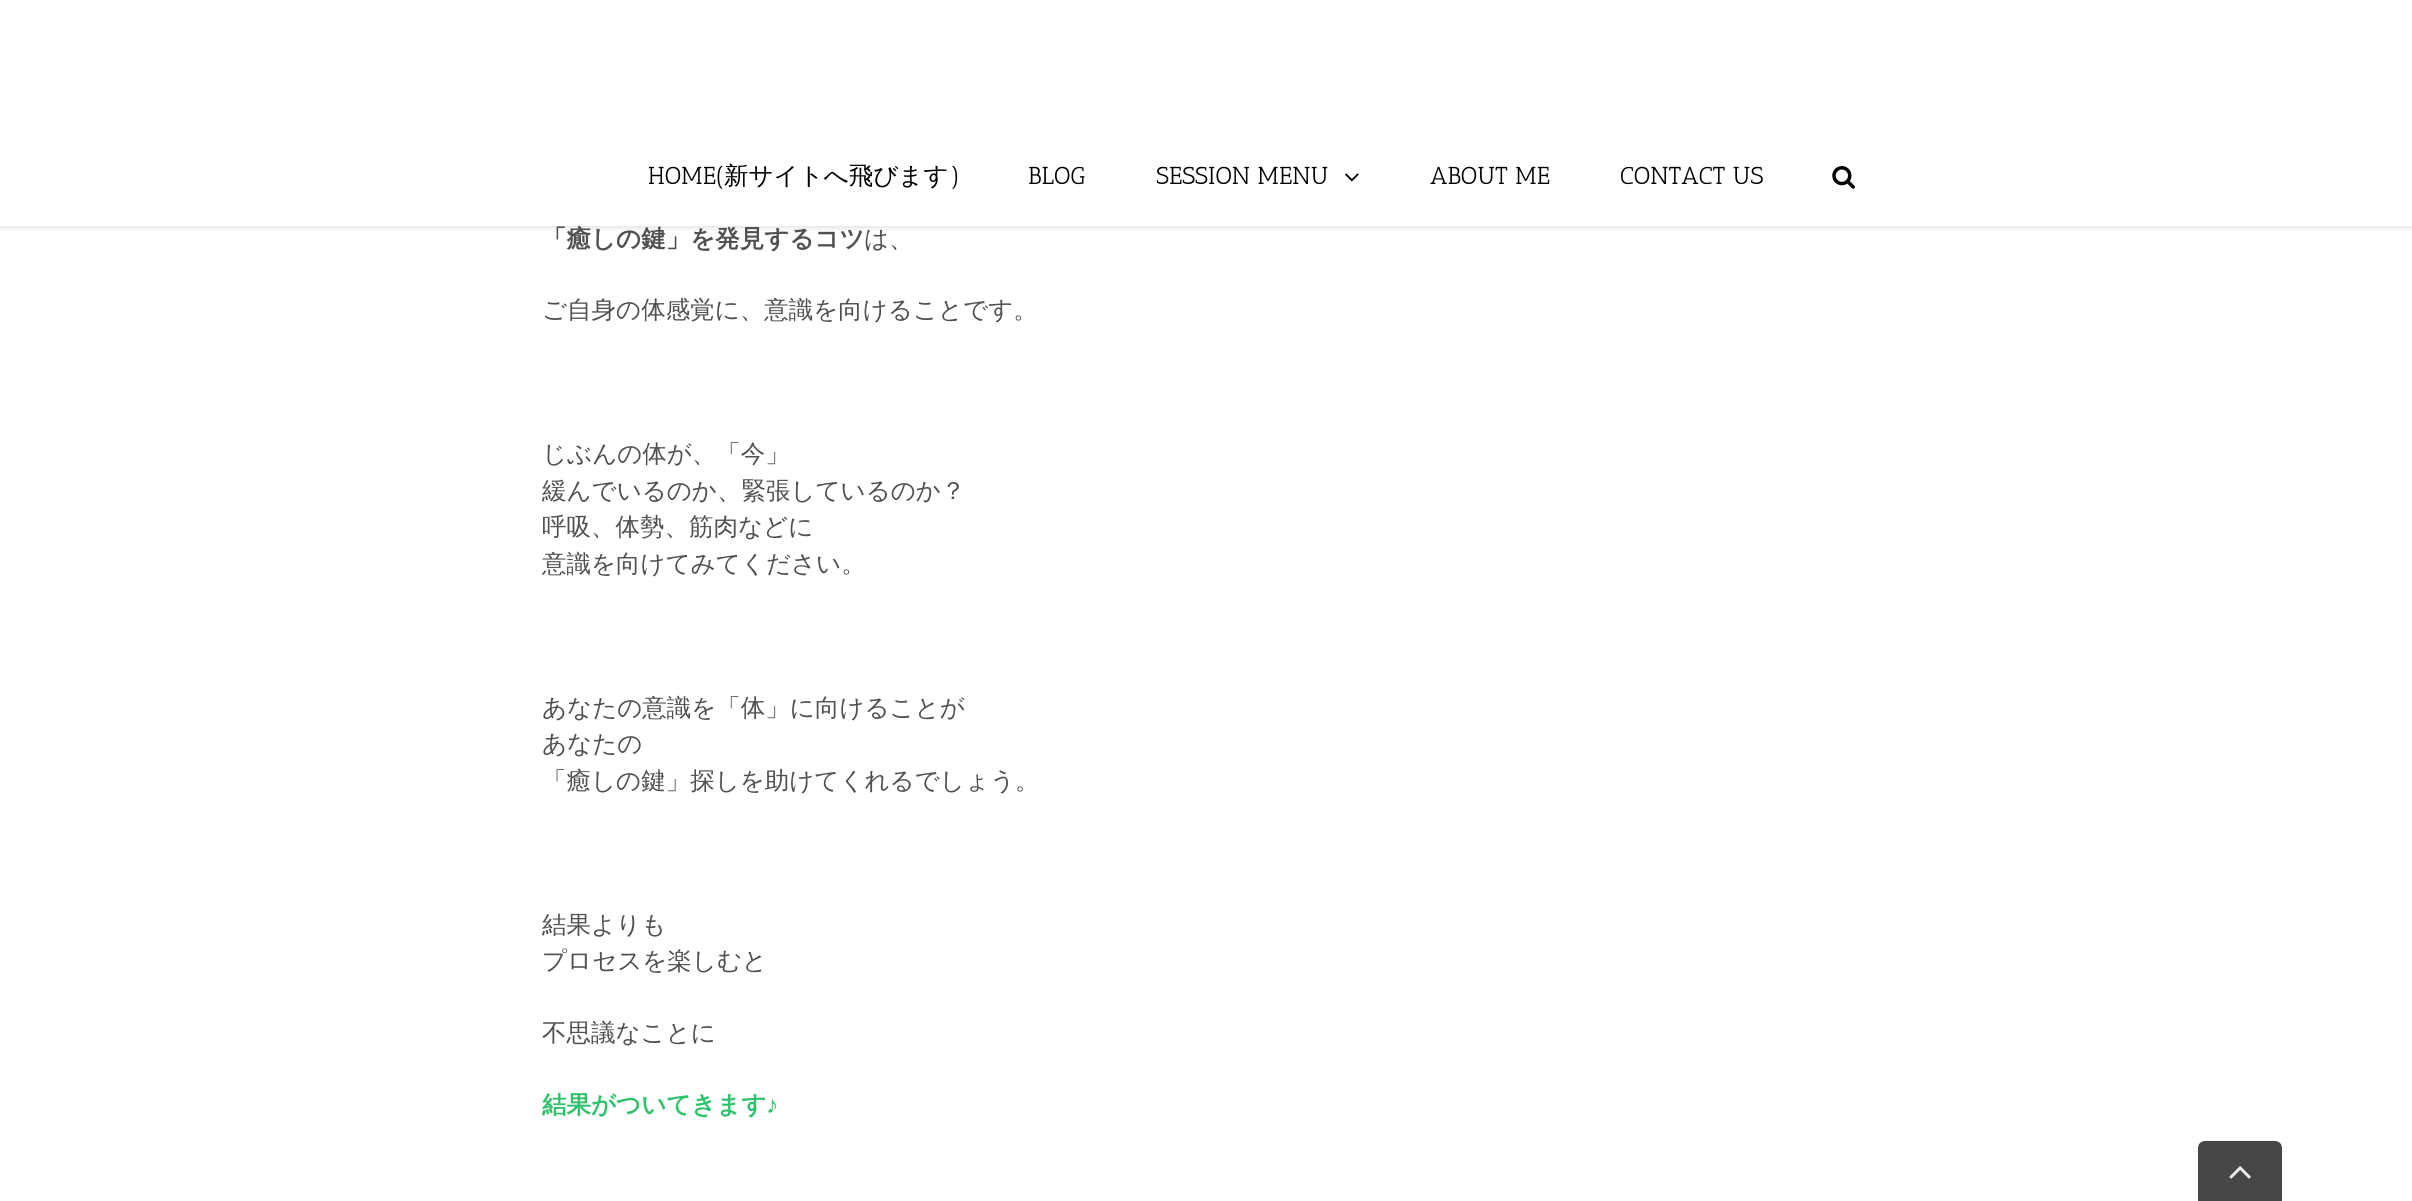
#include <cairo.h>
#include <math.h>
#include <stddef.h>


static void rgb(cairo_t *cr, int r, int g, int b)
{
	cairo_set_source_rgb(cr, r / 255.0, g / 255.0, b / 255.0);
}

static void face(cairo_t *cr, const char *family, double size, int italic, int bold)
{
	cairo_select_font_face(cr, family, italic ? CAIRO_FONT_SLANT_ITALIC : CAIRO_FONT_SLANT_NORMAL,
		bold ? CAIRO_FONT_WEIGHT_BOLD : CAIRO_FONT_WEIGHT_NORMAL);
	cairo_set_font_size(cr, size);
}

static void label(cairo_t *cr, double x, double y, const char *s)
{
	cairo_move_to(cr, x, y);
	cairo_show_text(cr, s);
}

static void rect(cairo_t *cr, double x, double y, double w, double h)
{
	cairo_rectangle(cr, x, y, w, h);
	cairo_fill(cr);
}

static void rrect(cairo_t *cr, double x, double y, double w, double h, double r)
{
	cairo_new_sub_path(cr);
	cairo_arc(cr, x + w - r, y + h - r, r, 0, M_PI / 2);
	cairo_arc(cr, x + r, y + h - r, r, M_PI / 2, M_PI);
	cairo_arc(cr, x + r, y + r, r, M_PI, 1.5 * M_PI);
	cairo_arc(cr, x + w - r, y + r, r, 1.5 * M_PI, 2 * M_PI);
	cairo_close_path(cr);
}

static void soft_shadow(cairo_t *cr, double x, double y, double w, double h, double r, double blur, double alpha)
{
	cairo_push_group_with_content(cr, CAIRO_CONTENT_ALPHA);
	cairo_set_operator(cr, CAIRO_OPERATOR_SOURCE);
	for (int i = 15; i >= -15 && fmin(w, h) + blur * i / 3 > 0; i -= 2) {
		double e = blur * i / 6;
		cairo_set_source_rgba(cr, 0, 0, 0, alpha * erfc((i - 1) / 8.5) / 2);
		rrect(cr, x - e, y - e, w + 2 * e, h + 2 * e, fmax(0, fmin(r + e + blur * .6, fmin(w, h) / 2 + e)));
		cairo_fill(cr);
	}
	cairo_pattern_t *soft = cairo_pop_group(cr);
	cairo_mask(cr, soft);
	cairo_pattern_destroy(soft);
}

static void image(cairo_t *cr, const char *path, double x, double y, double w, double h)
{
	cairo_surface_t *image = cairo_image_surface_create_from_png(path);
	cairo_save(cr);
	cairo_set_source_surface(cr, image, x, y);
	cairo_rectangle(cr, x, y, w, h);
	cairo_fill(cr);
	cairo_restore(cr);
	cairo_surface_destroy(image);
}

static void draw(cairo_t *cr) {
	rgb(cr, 255, 255, 255);
	cairo_paint(cr);
	rgb(cr, 0, 0, 0);
	soft_shadow(cr, 0, 2, 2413, 226, 0, 2.5, 0.12);
	rgb(cr, 255, 255, 255);
	rect(cr, 0, 0, 2412, 226);
	face(cr, "Antic Slab", 24.5, 0, 0);
	rgb(cr, 0, 0, 0);
	label(cr, 648, 184, "HOME(");
	face(cr, "WenQuanYi Zen Hei Medium", 24.5, 0, 0);
	label(cr, 724, 184, "新サイトへ飛びます");
	face(cr, "Antic Slab", 24.5, 0, 0);
	label(cr, 949, 184, ")");
	label(cr, 1028, 184, "BLOG");
	cairo_save(cr);
	cairo_rectangle(cr, 1157, 114, 273, 114);
	cairo_clip(cr);
	label(cr, 1156, 184, "SESSION MENU");
	cairo_restore(cr);
	image(cr, "image0.png", 1345, 173, 14, 9);
	label(cr, 1430, 184, "ABOUT ME");
	label(cr, 1620, 184, "CONTACT US");
	image(cr, "image1.png", 1832, 166, 23, 23);
	face(cr, "WenQuanYi Zen Hei", 24.5, 0, 1);
	rgb(cr, 80, 80, 80);
	label(cr, 542, 247, "「癒しの鍵」を発見するコツ");
	face(cr, "WenQuanYi Zen Hei Medium", 24.5, 0, 0);
	label(cr, 864, 247, "は、");
	label(cr, 542, 318, "ご自身の体感覚に、意識を向けることです。");
	label(cr, 542, 462, "じぶんの体が、「今」");
	label(cr, 542, 499, "緩んでいるのか、緊張しているのか？");
	label(cr, 542, 535, "呼吸、体勢、筋肉などに");
	label(cr, 542, 572, "意識を向けてみてください。");
	label(cr, 542, 716, "あなたの意識を「体」に向けることが");
	label(cr, 542, 752, "あなたの");
	label(cr, 542, 789, "「癒しの鍵」探しを助けてくれるでしょう。");
	label(cr, 542, 933, "結果よりも");
	label(cr, 542, 969, "プロセスを楽しむと");
	label(cr, 542, 1041, "不思議なことに");
	face(cr, "WenQuanYi Zen Hei", 24.5, 0, 1);
	rgb(cr, 45, 194, 107);
	label(cr, 542, 1113, "結果がついてきます");
	face(cr, "Liberation Serif", 24.5, 0, 1);
	label(cr, 766, 1113, "♪");
	rgb(cr, 71, 71, 71);
	cairo_new_path(cr);
	cairo_move_to(cr, 2205, 1141);
	cairo_line_to(cr, 2275, 1141);
	cairo_curve_to(cr, 2279, 1141, 2282, 1144, 2282, 1148);
	cairo_line_to(cr, 2282, 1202);
	cairo_line_to(cr, 2198, 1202);
	cairo_line_to(cr, 2198, 1148);
	cairo_curve_to(cr, 2198, 1144, 2201, 1141, 2205, 1141);
	cairo_close_path(cr);
	cairo_fill(cr);
	image(cr, "image2.png", 2229, 1166, 22, 13);
}

int main(void) {
	cairo_surface_t *surface = cairo_image_surface_create(CAIRO_FORMAT_RGB24, 2412, 1201);
	cairo_t *cr = cairo_create(surface);
	cairo_font_options_t *options = cairo_font_options_create();
	cairo_font_options_set_hint_metrics(options, CAIRO_HINT_METRICS_OFF);
	cairo_font_options_set_hint_style(options, CAIRO_HINT_STYLE_NONE);
	cairo_set_font_options(cr, options);
	cairo_set_miter_limit(cr, 4);
	draw(cr);
	cairo_surface_write_to_png(surface, "render.png");
	cairo_font_options_destroy(options);
	cairo_destroy(cr);
	cairo_surface_destroy(surface);
	return 0;
}
